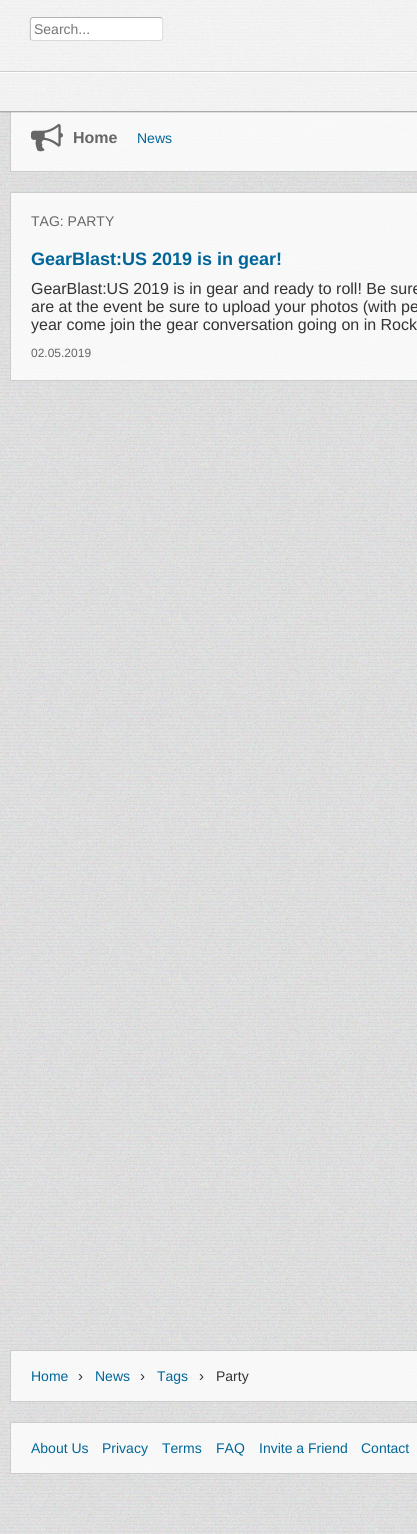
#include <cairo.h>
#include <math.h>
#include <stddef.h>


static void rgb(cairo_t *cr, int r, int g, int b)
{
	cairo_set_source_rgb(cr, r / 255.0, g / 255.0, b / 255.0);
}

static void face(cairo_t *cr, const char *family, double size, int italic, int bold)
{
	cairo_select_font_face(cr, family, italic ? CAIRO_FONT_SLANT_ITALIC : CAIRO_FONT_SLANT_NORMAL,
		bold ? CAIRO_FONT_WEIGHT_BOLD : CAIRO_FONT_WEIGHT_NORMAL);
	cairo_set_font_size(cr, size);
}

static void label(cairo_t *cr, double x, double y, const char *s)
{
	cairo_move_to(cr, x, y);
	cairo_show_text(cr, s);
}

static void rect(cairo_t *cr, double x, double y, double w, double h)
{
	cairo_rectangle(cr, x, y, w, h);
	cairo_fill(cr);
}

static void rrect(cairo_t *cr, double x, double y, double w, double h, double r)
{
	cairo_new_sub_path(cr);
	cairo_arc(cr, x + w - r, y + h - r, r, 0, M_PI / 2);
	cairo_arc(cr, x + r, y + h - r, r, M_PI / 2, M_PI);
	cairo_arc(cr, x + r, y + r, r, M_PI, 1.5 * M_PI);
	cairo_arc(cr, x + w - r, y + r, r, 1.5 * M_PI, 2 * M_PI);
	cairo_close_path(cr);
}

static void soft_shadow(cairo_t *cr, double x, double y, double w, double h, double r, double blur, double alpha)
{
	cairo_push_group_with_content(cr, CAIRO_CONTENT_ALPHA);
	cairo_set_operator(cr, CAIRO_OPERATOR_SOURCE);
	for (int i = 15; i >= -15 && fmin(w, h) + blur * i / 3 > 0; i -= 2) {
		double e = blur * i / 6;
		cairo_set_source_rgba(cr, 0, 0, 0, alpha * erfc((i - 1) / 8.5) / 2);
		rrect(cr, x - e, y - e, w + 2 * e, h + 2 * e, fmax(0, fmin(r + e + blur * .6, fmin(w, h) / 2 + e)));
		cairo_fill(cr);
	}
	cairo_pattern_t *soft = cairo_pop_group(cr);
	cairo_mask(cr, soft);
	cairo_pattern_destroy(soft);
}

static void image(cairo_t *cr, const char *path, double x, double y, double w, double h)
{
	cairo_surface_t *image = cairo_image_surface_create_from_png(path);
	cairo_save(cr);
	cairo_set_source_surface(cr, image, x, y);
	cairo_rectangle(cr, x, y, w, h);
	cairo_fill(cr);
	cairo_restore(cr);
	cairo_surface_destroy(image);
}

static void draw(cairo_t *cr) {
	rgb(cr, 255, 255, 255);
	cairo_paint(cr);
	image(cr, "image0.png", 0, 0, 417, 1534);
	cairo_set_source_rgba(cr, 1, 1, 1, 0.8);
	rect(cr, 11, 112, 406, 59);
	rgb(cr, 204, 204, 204);
	rect(cr, 10, 171, 407, 1);
	rect(cr, 10, 112, 1, 60);
	cairo_save(cr);
	cairo_rectangle(cr, 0, 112, 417, 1);
	cairo_clip(cr);
	rgb(cr, 51, 51, 51);
	soft_shadow(cr, 0, 73, 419, 40, 0, 0.5, 0.15);
	cairo_restore(cr);
	cairo_set_source_rgba(cr, 1, 1, 1, 0.6);
	rect(cr, 0, 0, 417, 72);
	cairo_set_source_rgba(cr, 0.753, 0.753, 0.753, 0.7);
	rect(cr, 0, 71, 417, 1);
	rgb(cr, 255, 255, 255);
	rrect(cr, 30, 17, 133, 24, 3);
	cairo_fill(cr);
	cairo_new_path(cr);
	cairo_move_to(cr, 162, 18);
	cairo_curve_to(cr, 163.5, 20, 162.5, 29.5, 162.5, 32);
	cairo_curve_to(cr, 162.5, 34, 164, 40.5, 160, 40.5);
	cairo_line_to(cr, 33, 40.5);
	cairo_line_to(cr, 31, 40);
	rgb(cr, 217, 217, 217);
	cairo_set_line_width(cr, 1);
	cairo_stroke(cr);
	cairo_new_path(cr);
	cairo_move_to(cr, 31, 40);
	cairo_curve_to(cr, 29.5, 38, 30.5, 28.5, 30.5, 26);
	cairo_curve_to(cr, 30.5, 24, 29, 17.5, 33, 17.5);
	cairo_line_to(cr, 160, 17.5);
	cairo_line_to(cr, 162, 18);
	rgb(cr, 178, 178, 178);
	cairo_stroke(cr);
	face(cr, "Liberation Sans", 14, 0, 0);
	rgb(cr, 117, 117, 117);
	label(cr, 34, 34, "Search...");
	cairo_set_source_rgba(cr, 1, 1, 1, 0.6);
	rect(cr, 0, 72, 417, 40);
	cairo_set_source_rgba(cr, 1, 1, 1, 0.9);
	rect(cr, 0, 72, 417, 1);
	cairo_set_source_rgba(cr, 0.251, 0.251, 0.251, 0.4);
	rect(cr, 0, 111, 417, 1);
	image(cr, "image1.png", 31, 123, 32, 29);
	face(cr, "Liberation Sans", 16, 0, 1);
	rgb(cr, 102, 102, 102);
	label(cr, 73, 143, "Home");
	face(cr, "Liberation Sans", 14, 0, 0);
	rgb(cr, 0, 102, 153);
	label(cr, 137, 143, "News");
	cairo_set_source_rgba(cr, 1, 1, 1, 0.8);
	cairo_rectangle(cr, 10.5, 192.5, 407, 188);
	cairo_fill_preserve(cr);
	rgb(cr, 204, 204, 204);
	cairo_stroke(cr);
	rgb(cr, 102, 102, 102);
	label(cr, 31, 226, "TAG: PARTY");
	face(cr, "Liberation Sans", 18, 0, 1);
	rgb(cr, 0, 102, 153);
	label(cr, 31, 265, "GearBlast:US 2019 is in gear!");
	face(cr, "Liberation Sans", 16, 0, 0);
	rgb(cr, 51, 51, 51);
	label(cr, 31, 294, "GearBlast:US 2019 is in gear and ready to roll! Be sure");
	label(cr, 31, 312, "are at the event be sure to upload your photos (with pe");
	label(cr, 31, 330, "year come join the gear conversation going on in Rock");
	face(cr, "Liberation Sans", 12, 0, 0);
	rgb(cr, 102, 102, 102);
	label(cr, 31, 357, "02.05.2019");
	cairo_set_source_rgba(cr, 1, 1, 1, 0.8);
	cairo_rectangle(cr, 10.5, 1350.5, 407, 51);
	cairo_fill_preserve(cr);
	rgb(cr, 204, 204, 204);
	cairo_stroke(cr);
	face(cr, "Liberation Sans", 14, 0, 0);
	rgb(cr, 0, 102, 153);
	label(cr, 31, 1381, "Home");
	face(cr, "Liberation Sans", 15, 0, 0);
	rgb(cr, 51, 51, 51);
	label(cr, 78, 1381, "›");
	face(cr, "Liberation Sans", 14, 0, 0);
	rgb(cr, 0, 102, 153);
	label(cr, 95, 1381, "News");
	face(cr, "Liberation Sans", 15, 0, 0);
	rgb(cr, 51, 51, 51);
	label(cr, 140, 1381, "›");
	face(cr, "Liberation Sans", 14, 0, 0);
	rgb(cr, 0, 102, 153);
	label(cr, 157, 1381, "Tags");
	face(cr, "Liberation Sans", 15, 0, 0);
	rgb(cr, 51, 51, 51);
	label(cr, 199, 1381, "›");
	face(cr, "Liberation Sans", 14, 0, 0);
	label(cr, 216, 1381, "Party");
	cairo_set_source_rgba(cr, 1, 1, 1, 0.8);
	cairo_rectangle(cr, 10.5, 1422.5, 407, 51);
	cairo_fill_preserve(cr);
	rgb(cr, 204, 204, 204);
	cairo_stroke(cr);
	rgb(cr, 0, 102, 153);
	label(cr, 31, 1453, "About Us");
	label(cr, 102, 1453, "Privacy");
	label(cr, 162, 1453, "Terms");
	label(cr, 216, 1453, "FAQ");
	label(cr, 259, 1453, "Invite a Friend");
	label(cr, 361, 1453, "Contact");
}

int main(void) {
	cairo_surface_t *surface = cairo_image_surface_create(CAIRO_FORMAT_RGB24, 417, 1534);
	cairo_t *cr = cairo_create(surface);
	cairo_font_options_t *options = cairo_font_options_create();
	cairo_font_options_set_hint_metrics(options, CAIRO_HINT_METRICS_OFF);
	cairo_font_options_set_hint_style(options, CAIRO_HINT_STYLE_NONE);
	cairo_set_font_options(cr, options);
	cairo_set_miter_limit(cr, 4);
	draw(cr);
	cairo_surface_write_to_png(surface, "render.png");
	cairo_font_options_destroy(options);
	cairo_destroy(cr);
	cairo_surface_destroy(surface);
	return 0;
}
